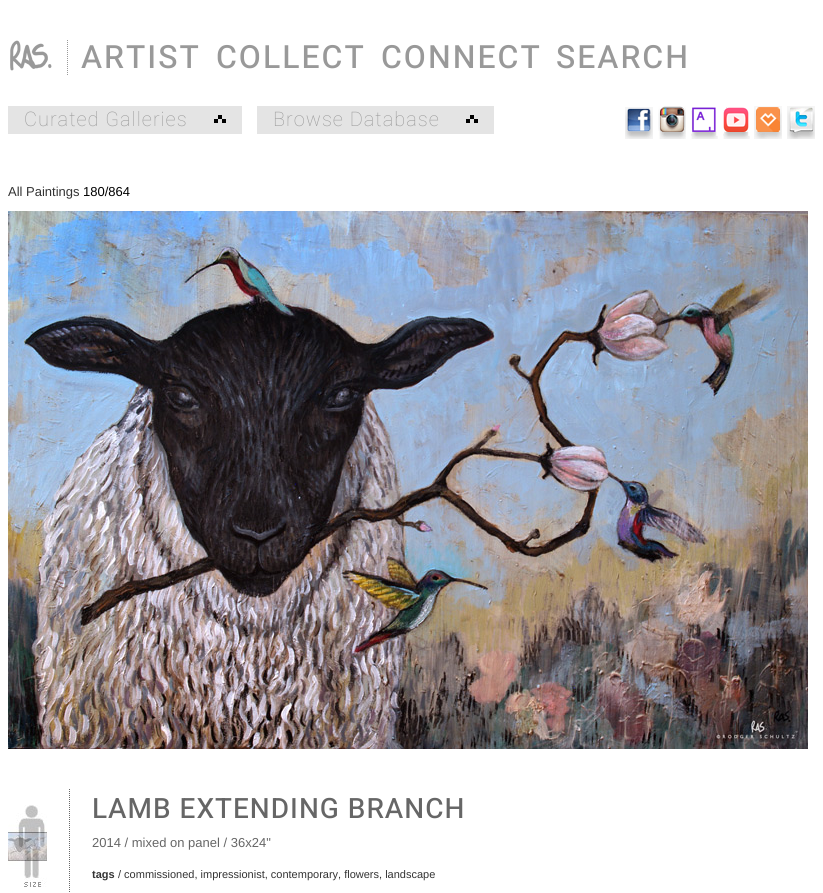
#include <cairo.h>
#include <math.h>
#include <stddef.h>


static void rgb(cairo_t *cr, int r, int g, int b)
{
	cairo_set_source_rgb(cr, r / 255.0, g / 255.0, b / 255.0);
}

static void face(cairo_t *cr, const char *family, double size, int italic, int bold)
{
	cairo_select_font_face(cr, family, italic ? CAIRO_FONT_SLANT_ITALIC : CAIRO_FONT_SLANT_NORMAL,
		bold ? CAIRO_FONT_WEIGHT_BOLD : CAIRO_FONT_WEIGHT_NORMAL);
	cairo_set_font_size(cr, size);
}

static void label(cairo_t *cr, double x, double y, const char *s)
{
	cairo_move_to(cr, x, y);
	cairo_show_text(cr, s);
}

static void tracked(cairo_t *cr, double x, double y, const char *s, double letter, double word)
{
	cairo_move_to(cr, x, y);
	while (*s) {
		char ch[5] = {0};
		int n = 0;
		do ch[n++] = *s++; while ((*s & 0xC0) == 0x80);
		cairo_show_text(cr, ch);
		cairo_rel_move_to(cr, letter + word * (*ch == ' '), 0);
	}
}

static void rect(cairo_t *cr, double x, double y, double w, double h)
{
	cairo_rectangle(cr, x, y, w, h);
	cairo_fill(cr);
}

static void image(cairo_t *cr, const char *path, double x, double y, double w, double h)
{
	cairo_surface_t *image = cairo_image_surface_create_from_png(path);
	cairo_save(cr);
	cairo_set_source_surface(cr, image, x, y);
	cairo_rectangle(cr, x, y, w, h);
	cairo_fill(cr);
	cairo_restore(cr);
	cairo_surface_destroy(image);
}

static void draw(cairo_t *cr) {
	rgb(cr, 255, 255, 255);
	cairo_paint(cr);
	cairo_new_path(cr);
	cairo_move_to(cr, 67.5, 40);
	cairo_line_to(cr, 67.5, 76);
	rgb(cr, 153, 153, 153);
	cairo_set_line_width(cr, 1);
	cairo_set_dash(cr, (double[]){1, 1}, 2, 0);
	cairo_stroke(cr);
	image(cr, "image0.png", 10, 40, 42, 31);
	face(cr, "Heebo Medium", 32, 0, 0);
	tracked(cr, 81, 68, "ARTIST", 2, 0);
	tracked(cr, 216, 68, "COLLECT", 2, 0);
	tracked(cr, 381, 68, "CONNECT", 2, 0);
	tracked(cr, 556, 68, "SEARCH", 2, 0);
	rgb(cr, 228, 228, 228);
	rect(cr, 8, 106, 234, 28);
	face(cr, "Heebo Thin", 20, 0, 0);
	rgb(cr, 153, 153, 153);
	tracked(cr, 24, 126, "Curated Galleries", 1, 0);
	image(cr, "image1.png", 214, 115, 12, 8);
	rgb(cr, 228, 228, 228);
	rect(cr, 257, 106, 237, 28);
	rgb(cr, 153, 153, 153);
	tracked(cr, 273, 126, "Browse Database", 1, 0);
	image(cr, "image1.png", 466, 115, 12, 8);
	image(cr, "image2.png", 625, 107, 28, 32);
	image(cr, "image3.png", 658, 106, 28, 33);
	image(cr, "image4.png", 691, 107, 27, 32);
	image(cr, "image5.png", 723, 107, 27, 32);
	image(cr, "image6.png", 754, 106, 28, 33);
	image(cr, "image7.png", 787, 106, 28, 33);
	face(cr, "Liberation Sans", 13, 0, 0);
	rgb(cr, 51, 51, 51);
	label(cr, 8, 196, "All Paintings");
	rgb(cr, 0, 0, 0);
	label(cr, 83, 196, "180/864");
	image(cr, "image8.png", 8, 211, 800, 538);
	image(cr, "image9.png", 8, 805, 39, 82);
	image(cr, "image10.png", 69, 789, 1, 103);
	face(cr, "Heebo Medium", 28, 0, 0);
	rgb(cr, 102, 102, 102);
	tracked(cr, 92, 818, "LAMB EXTENDING BRANCH", 1, 0);
	face(cr, "Liberation Sans", 13, 0, 0);
	label(cr, 92, 847, "2014 / mixed on panel / 36x24\"");
	face(cr, "Liberation Sans", 11, 0, 1);
	rgb(cr, 51, 51, 51);
	label(cr, 92, 878, "tags");
	face(cr, "Liberation Sans", 11, 0, 0);
	label(cr, 118, 878, "/ commissioned, impressionist, contemporary, flowers, landscape");
}

int main(void) {
	cairo_surface_t *surface = cairo_image_surface_create(CAIRO_FORMAT_RGB24, 823, 893);
	cairo_t *cr = cairo_create(surface);
	cairo_font_options_t *options = cairo_font_options_create();
	cairo_font_options_set_hint_metrics(options, CAIRO_HINT_METRICS_OFF);
	cairo_font_options_set_hint_style(options, CAIRO_HINT_STYLE_NONE);
	cairo_set_font_options(cr, options);
	cairo_set_miter_limit(cr, 4);
	draw(cr);
	cairo_surface_write_to_png(surface, "render.png");
	cairo_font_options_destroy(options);
	cairo_destroy(cr);
	cairo_surface_destroy(surface);
	return 0;
}
